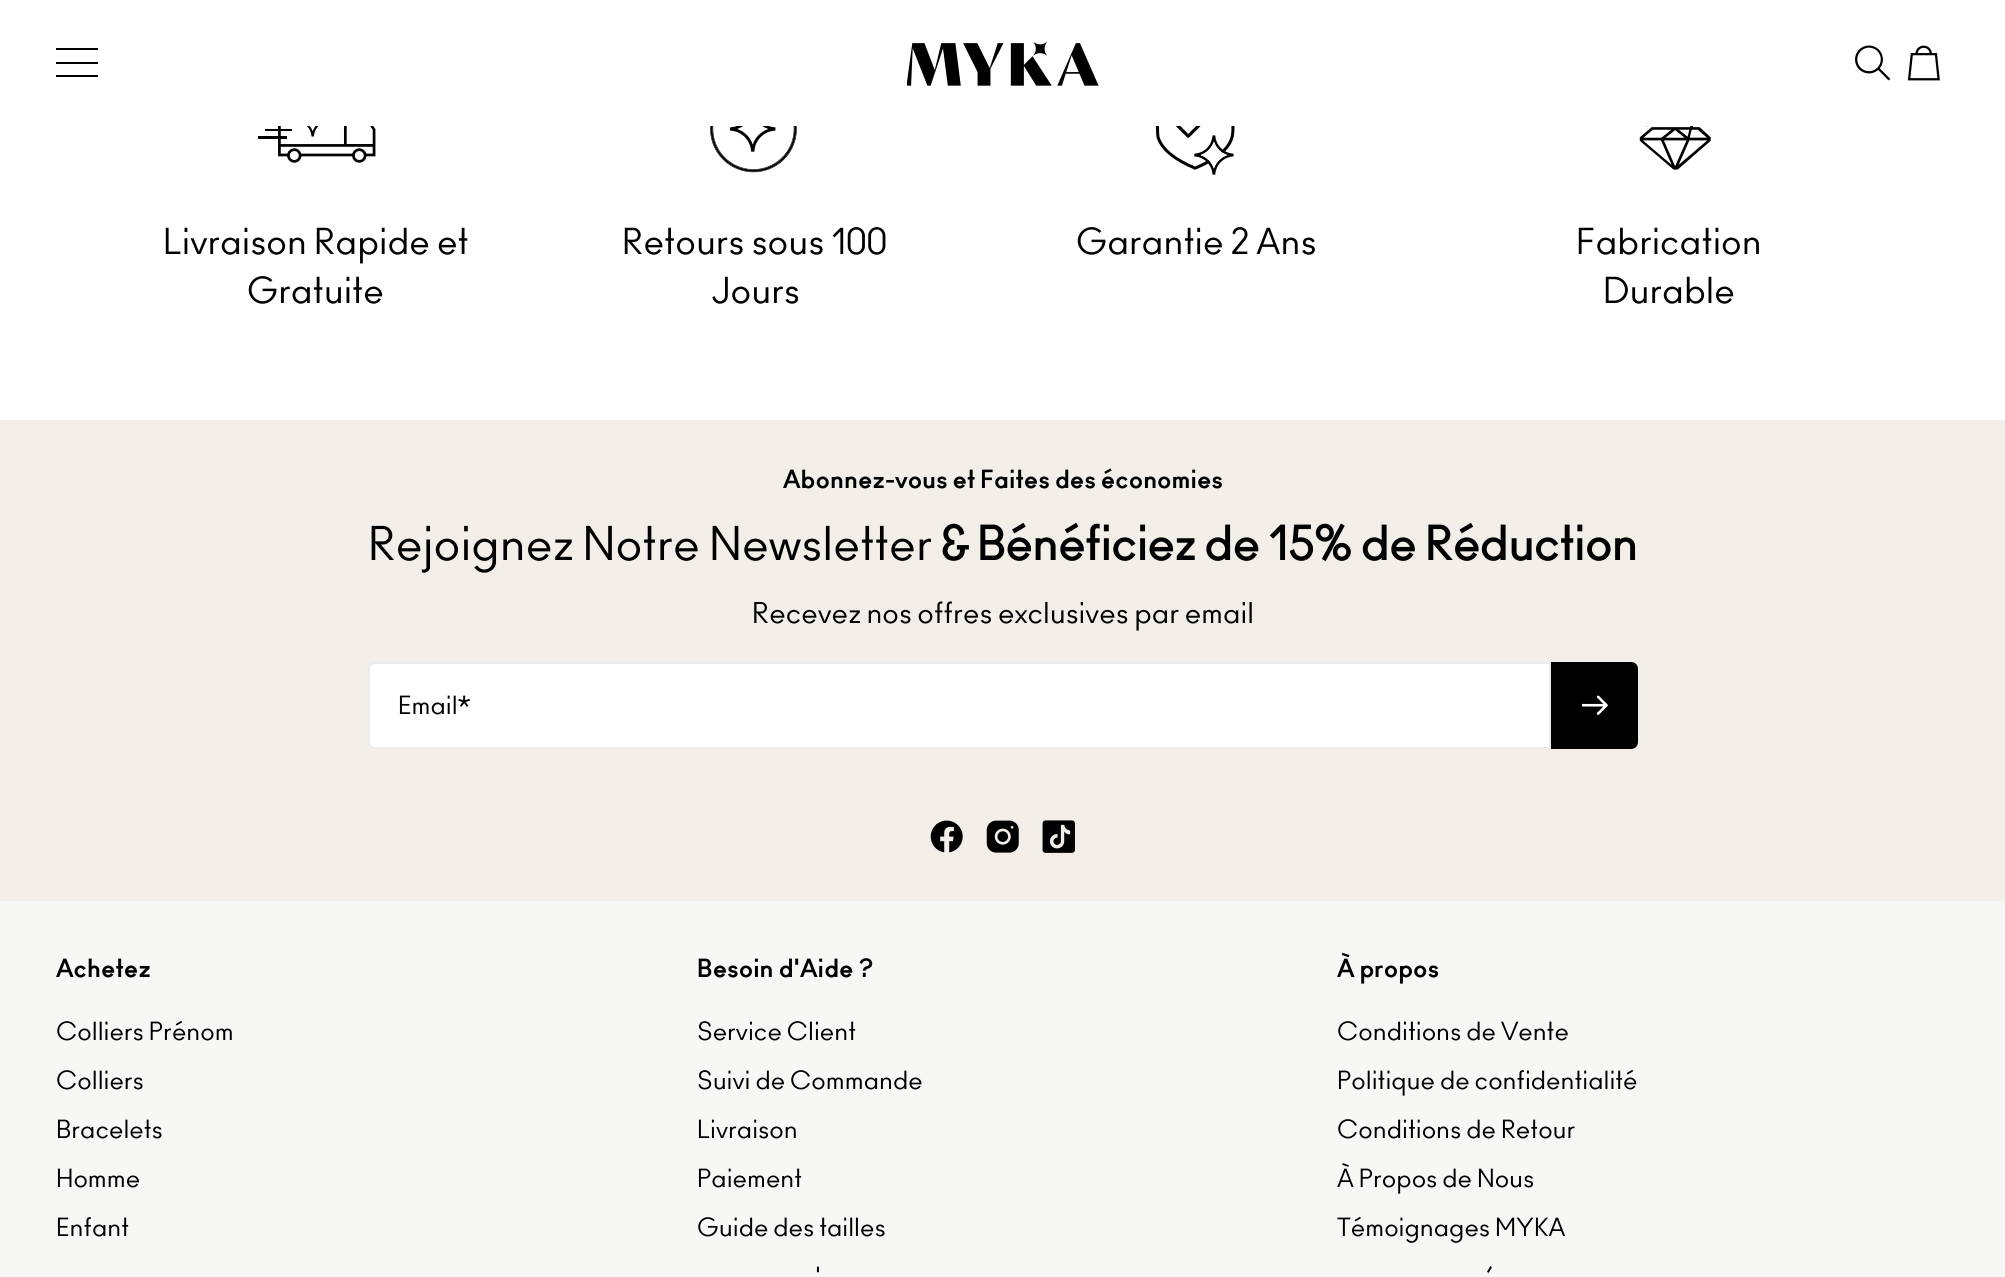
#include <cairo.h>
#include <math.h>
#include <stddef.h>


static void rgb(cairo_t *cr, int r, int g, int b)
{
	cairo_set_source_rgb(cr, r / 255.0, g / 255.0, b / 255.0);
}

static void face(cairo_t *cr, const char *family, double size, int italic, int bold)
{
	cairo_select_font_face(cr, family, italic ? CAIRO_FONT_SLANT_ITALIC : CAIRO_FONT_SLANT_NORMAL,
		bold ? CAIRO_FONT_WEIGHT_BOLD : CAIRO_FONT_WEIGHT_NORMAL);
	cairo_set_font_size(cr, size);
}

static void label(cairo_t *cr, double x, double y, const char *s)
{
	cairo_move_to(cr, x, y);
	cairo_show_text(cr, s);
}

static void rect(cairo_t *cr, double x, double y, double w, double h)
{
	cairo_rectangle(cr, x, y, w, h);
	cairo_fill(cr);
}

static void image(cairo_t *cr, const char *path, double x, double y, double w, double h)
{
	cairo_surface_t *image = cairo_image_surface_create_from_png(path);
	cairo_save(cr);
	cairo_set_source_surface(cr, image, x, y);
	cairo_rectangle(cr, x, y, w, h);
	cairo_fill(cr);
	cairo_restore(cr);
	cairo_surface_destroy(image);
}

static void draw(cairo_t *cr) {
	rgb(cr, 255, 255, 255);
	cairo_paint(cr);
	rgb(cr, 0, 0, 0);
	cairo_new_path(cr);
	cairo_move_to(cr, 56, 48);
	cairo_line_to(cr, 98, 48);
	cairo_line_to(cr, 98, 50);
	cairo_line_to(cr, 56, 50);
	cairo_close_path(cr);
	cairo_move_to(cr, 56, 62);
	cairo_line_to(cr, 98, 62);
	cairo_line_to(cr, 98, 64);
	cairo_line_to(cr, 56, 64);
	cairo_close_path(cr);
	cairo_move_to(cr, 56, 75);
	cairo_line_to(cr, 98, 75);
	cairo_line_to(cr, 98, 77);
	cairo_line_to(cr, 56, 77);
	cairo_close_path(cr);
	cairo_fill(cr);
	image(cr, "image0.png", 907, 42, 192, 44);
	image(cr, "image1.png", 1855, 45, 36, 36);
	image(cr, "image2.png", 1908, 45, 32, 36);
	image(cr, "image3.png", 258, 126, 118, 37);
	face(cr, "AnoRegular", 35, 0, 0);
	label(cr, 163, 254, "Livraison Rapide et");
	label(cr, 247, 303, "Gratuite");
	image(cr, "image4.png", 710, 126, 87, 47);
	label(cr, 622, 254, "Retours sous 100");
	label(cr, 711, 303, "Jours");
	image(cr, "image5.png", 1156, 126, 79, 49);
	label(cr, 1076, 254, "Garantie 2 Ans");
	image(cr, "image6.png", 1639, 126, 72, 44);
	label(cr, 1576, 254, "Fabrication");
	label(cr, 1603, 303, "Durable");
	rgb(cr, 247, 247, 244);
	rect(cr, 0, 901, 2005, 376);
	rgb(cr, 244, 238, 233);
	rect(cr, 0, 420, 2005, 481);
	face(cr, "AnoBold", 24.5, 0, 1);
	rgb(cr, 0, 0, 0);
	label(cr, 783, 488, "Abonnez-vous et Faites des économies");
	face(cr, "AnoRegular", 45.5, 0, 0);
	label(cr, 368, 560, "Rejoignez Notre Newsletter");
	face(cr, "AnoRegular", 45.5, 0, 1);
	label(cr, 941, 560, "& Bénéficiez de 15% de Réduction");
	face(cr, "AnoRegular", 28, 0, 0);
	label(cr, 752, 623, "Recevez nos offres exclusives par email");
	rgb(cr, 255, 255, 255);
	cairo_new_path(cr);
	cairo_move_to(cr, 375, 663);
	cairo_line_to(cr, 1550, 663);
	cairo_line_to(cr, 1550, 748);
	cairo_line_to(cr, 375, 748);
	cairo_curve_to(cr, 371.5, 748, 369, 745.5, 369, 742);
	cairo_line_to(cr, 369, 669);
	cairo_curve_to(cr, 369, 665.5, 371.5, 663, 375, 663);
	cairo_close_path(cr);
	cairo_fill_preserve(cr);
	rgb(cr, 235, 235, 235);
	cairo_stroke(cr);
	face(cr, "AnoRegular", 24.5, 0, 0);
	rgb(cr, 0, 0, 0);
	label(cr, 398, 714, "Email*");
	cairo_new_path(cr);
	cairo_move_to(cr, 1552, 663);
	cairo_line_to(cr, 1631, 663);
	cairo_curve_to(cr, 1634.5, 663, 1637, 665.5, 1637, 669);
	cairo_line_to(cr, 1637, 742);
	cairo_curve_to(cr, 1637, 745.5, 1634.5, 748, 1631, 748);
	cairo_line_to(cr, 1552, 748);
	cairo_close_path(cr);
	cairo_fill_preserve(cr);
	cairo_stroke(cr);
	image(cr, "image7.png", 1582, 695, 26, 20);
	image(cr, "image8.png", 930, 820, 33, 33);
	image(cr, "image9.png", 986, 820, 33, 33);
	image(cr, "image10.png", 1042, 820, 33, 33);
	face(cr, "AnoBold", 24.5, 0, 1);
	label(cr, 56, 977, "Achetez");
	face(cr, "AnoRegular", 24.5, 0, 0);
	label(cr, 56, 1040, "Colliers Prénom");
	label(cr, 56, 1089, "Colliers");
	label(cr, 56, 1138, "Bracelets");
	label(cr, 56, 1187, "Homme");
	label(cr, 56, 1236, "Enfant");
	face(cr, "AnoBold", 24.5, 0, 1);
	label(cr, 697, 977, "Besoin d'Aide ?");
	face(cr, "AnoRegular", 24.5, 0, 0);
	label(cr, 697, 1040, "Service Client");
	label(cr, 697, 1089, "Suivi de Commande");
	label(cr, 697, 1138, "Livraison");
	label(cr, 697, 1187, "Paiement");
	label(cr, 697, 1236, "Guide des tailles");
	label(cr, 815, 1285, "'");
	face(cr, "AnoBold", 24.5, 0, 1);
	label(cr, 1337, 977, "À propos");
	face(cr, "AnoRegular", 24.5, 0, 0);
	label(cr, 1337, 1040, "Conditions de Vente");
	label(cr, 1337, 1089, "Politique de confidentialité");
	label(cr, 1337, 1138, "Conditions de Retour");
	label(cr, 1337, 1187, "À Propos de Nous");
	label(cr, 1337, 1236, "Témoignages MYKA");
	label(cr, 1487, 1285, "’");
}

int main(void) {
	cairo_surface_t *surface = cairo_image_surface_create(CAIRO_FORMAT_RGB24, 2005, 1277);
	cairo_t *cr = cairo_create(surface);
	cairo_font_options_t *options = cairo_font_options_create();
	cairo_font_options_set_hint_metrics(options, CAIRO_HINT_METRICS_OFF);
	cairo_font_options_set_hint_style(options, CAIRO_HINT_STYLE_NONE);
	cairo_set_font_options(cr, options);
	cairo_set_miter_limit(cr, 4);
	draw(cr);
	cairo_surface_write_to_png(surface, "render.png");
	cairo_font_options_destroy(options);
	cairo_destroy(cr);
	cairo_surface_destroy(surface);
	return 0;
}
